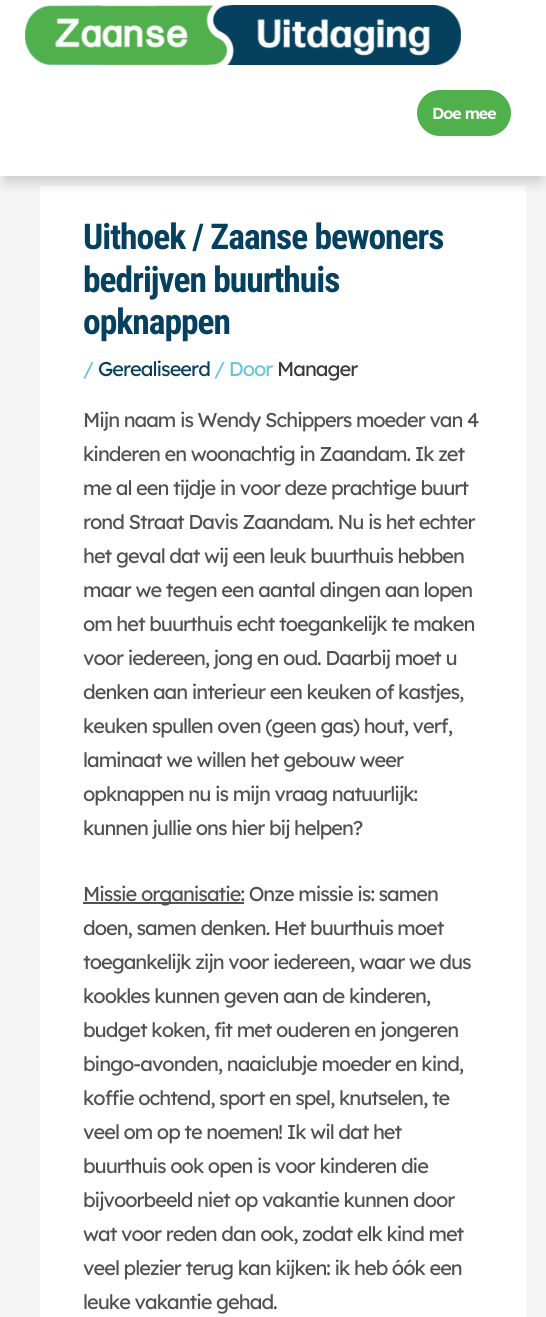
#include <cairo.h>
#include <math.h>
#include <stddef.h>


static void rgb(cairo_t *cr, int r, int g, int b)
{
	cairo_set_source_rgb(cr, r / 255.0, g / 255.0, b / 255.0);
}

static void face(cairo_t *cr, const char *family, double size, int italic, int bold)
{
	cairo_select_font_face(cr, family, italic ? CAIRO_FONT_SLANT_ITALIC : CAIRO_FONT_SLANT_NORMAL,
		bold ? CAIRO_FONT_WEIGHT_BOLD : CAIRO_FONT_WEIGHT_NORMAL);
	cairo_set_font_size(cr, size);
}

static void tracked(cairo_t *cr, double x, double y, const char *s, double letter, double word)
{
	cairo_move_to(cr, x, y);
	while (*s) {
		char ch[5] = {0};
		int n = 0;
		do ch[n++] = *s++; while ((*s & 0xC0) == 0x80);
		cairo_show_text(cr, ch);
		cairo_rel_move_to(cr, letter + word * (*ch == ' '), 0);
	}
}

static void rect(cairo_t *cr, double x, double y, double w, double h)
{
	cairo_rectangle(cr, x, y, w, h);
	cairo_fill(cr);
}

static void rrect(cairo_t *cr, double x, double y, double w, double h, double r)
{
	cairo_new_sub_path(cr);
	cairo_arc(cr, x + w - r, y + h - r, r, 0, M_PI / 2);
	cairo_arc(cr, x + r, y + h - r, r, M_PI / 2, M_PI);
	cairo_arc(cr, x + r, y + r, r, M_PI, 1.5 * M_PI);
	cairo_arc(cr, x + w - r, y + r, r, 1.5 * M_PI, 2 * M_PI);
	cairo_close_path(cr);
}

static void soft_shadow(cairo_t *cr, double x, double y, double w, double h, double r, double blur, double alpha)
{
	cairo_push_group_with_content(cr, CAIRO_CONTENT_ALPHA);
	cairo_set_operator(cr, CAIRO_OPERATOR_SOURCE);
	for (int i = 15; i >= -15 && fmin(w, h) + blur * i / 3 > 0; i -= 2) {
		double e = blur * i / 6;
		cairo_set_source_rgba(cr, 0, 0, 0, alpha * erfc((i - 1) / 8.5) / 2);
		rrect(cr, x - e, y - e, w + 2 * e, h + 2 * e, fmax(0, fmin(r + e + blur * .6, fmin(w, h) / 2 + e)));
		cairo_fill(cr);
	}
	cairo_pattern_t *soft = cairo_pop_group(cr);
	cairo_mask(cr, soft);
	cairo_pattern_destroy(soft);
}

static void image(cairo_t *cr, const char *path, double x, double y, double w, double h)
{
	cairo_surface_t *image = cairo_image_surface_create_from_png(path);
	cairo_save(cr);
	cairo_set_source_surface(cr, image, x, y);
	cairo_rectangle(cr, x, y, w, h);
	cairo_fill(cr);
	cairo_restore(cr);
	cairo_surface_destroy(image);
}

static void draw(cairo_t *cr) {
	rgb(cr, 245, 245, 245);
	cairo_paint(cr);
	rgb(cr, 255, 255, 255);
	rect(cr, 40, 186, 486, 1131);
	rgb(cr, 0, 0, 0);
	soft_shadow(cr, 5, 15, 536, 166, 0, 7.5, 0.2);
	rgb(cr, 255, 255, 255);
	rect(cr, 0, 0, 546, 176);
	image(cr, "image0.png", 25, 5, 436, 60);
	rgb(cr, 80, 176, 76);
	rrect(cr, 417, 90, 94, 46, 23);
	cairo_fill(cr);
	face(cr, "Lexend Deca SemiBold", 16, 0, 0);
	rgb(cr, 255, 255, 255);
	tracked(cr, 432, 119, "Doe mee", -1, 0);
	face(cr, "Roboto Condensed", 35.5, 0, 1);
	rgb(cr, 5, 65, 94);
	tracked(cr, 83, 249, "Uithoek / Zaanse bewoners", -1, 0);
	tracked(cr, 83, 292, "bedrijven buurthuis", -1, 0);
	tracked(cr, 83, 334, "opknappen", -1, 0);
	face(cr, "Lexend Deca", 20, 0, 0);
	rgb(cr, 106, 197, 213);
	tracked(cr, 83, 376, "/", -1, 0);
	rgb(cr, 5, 65, 94);
	tracked(cr, 98, 376, "Gerealiseerd", -1, 0);
	rgb(cr, 106, 197, 213);
	tracked(cr, 214, 376, "/ Door", -1, 0);
	rgb(cr, 58, 58, 58);
	tracked(cr, 277, 376, "Manager", -1, 0);
	rgb(cr, 81, 81, 81);
	tracked(cr, 83, 427, "Mijn naam is Wendy Schippers moeder van 4", -1, 0);
	tracked(cr, 83, 461, "kinderen en woonachtig in Zaandam. Ik zet", -1, 0);
	tracked(cr, 83, 495, "me al een tijdje in voor deze prachtige buurt", -1, 0);
	tracked(cr, 83, 529, "rond Straat Davis Zaandam. Nu is het echter", -1, 0);
	tracked(cr, 83, 563, "het geval dat wij een leuk buurthuis hebben", -1, 0);
	tracked(cr, 83, 597, "maar we tegen een aantal dingen aan lopen", -1, 0);
	tracked(cr, 83, 631, "om het buurthuis echt toegankelijk te maken", -1, 0);
	tracked(cr, 83, 665, "voor iedereen, jong en oud. Daarbij moet u", -1, 0);
	tracked(cr, 83, 699, "denken aan interieur een keuken of kastjes,", -1, 0);
	tracked(cr, 83, 733, "keuken spullen oven (geen gas) hout, verf,", -1, 0);
	tracked(cr, 83, 767, "laminaat we willen het gebouw weer", -1, 0);
	tracked(cr, 83, 801, "opknappen nu is mijn vraag natuurlijk:", -1, 0);
	tracked(cr, 83, 835, "kunnen jullie ons hier bij helpen?", -1, 0);
	rect(cr, 83, 902, 161, 2);
	tracked(cr, 83, 901, "Missie organisatie: Onze missie is: samen", -1, 0);
	tracked(cr, 83, 935, "doen, samen denken. Het buurthuis moet", -1, 0);
	tracked(cr, 83, 969, "toegankelijk zijn voor iedereen, waar we dus", -1, 0);
	tracked(cr, 83, 1003, "kookles kunnen geven aan de kinderen,", -1, 0);
	tracked(cr, 83, 1037, "budget koken, fit met ouderen en jongeren", -1, 0);
	tracked(cr, 83, 1071, "bingo-avonden, naaiclubje moeder en kind,", -1, 0);
	tracked(cr, 83, 1105, "koffie ochtend, sport en spel, knutselen, te", -1, 0);
	tracked(cr, 83, 1139, "veel om op te noemen! Ik wil dat het", -1, 0);
	tracked(cr, 83, 1173, "buurthuis ook open is voor kinderen die", -1, 0);
	tracked(cr, 83, 1207, "bijvoorbeeld niet op vakantie kunnen door", -1, 0);
	tracked(cr, 83, 1241, "wat voor reden dan ook, zodat elk kind met", -1, 0);
	tracked(cr, 83, 1275, "veel plezier terug kan kijken: ik heb óók een", -1, 0);
	tracked(cr, 83, 1309, "leuke vakantie gehad.", -1, 0);
}

int main(void) {
	cairo_surface_t *surface = cairo_image_surface_create(CAIRO_FORMAT_RGB24, 546, 1317);
	cairo_t *cr = cairo_create(surface);
	cairo_font_options_t *options = cairo_font_options_create();
	cairo_font_options_set_hint_metrics(options, CAIRO_HINT_METRICS_OFF);
	cairo_font_options_set_hint_style(options, CAIRO_HINT_STYLE_NONE);
	cairo_set_font_options(cr, options);
	cairo_set_miter_limit(cr, 4);
	draw(cr);
	cairo_surface_write_to_png(surface, "render.png");
	cairo_font_options_destroy(options);
	cairo_destroy(cr);
	cairo_surface_destroy(surface);
	return 0;
}
